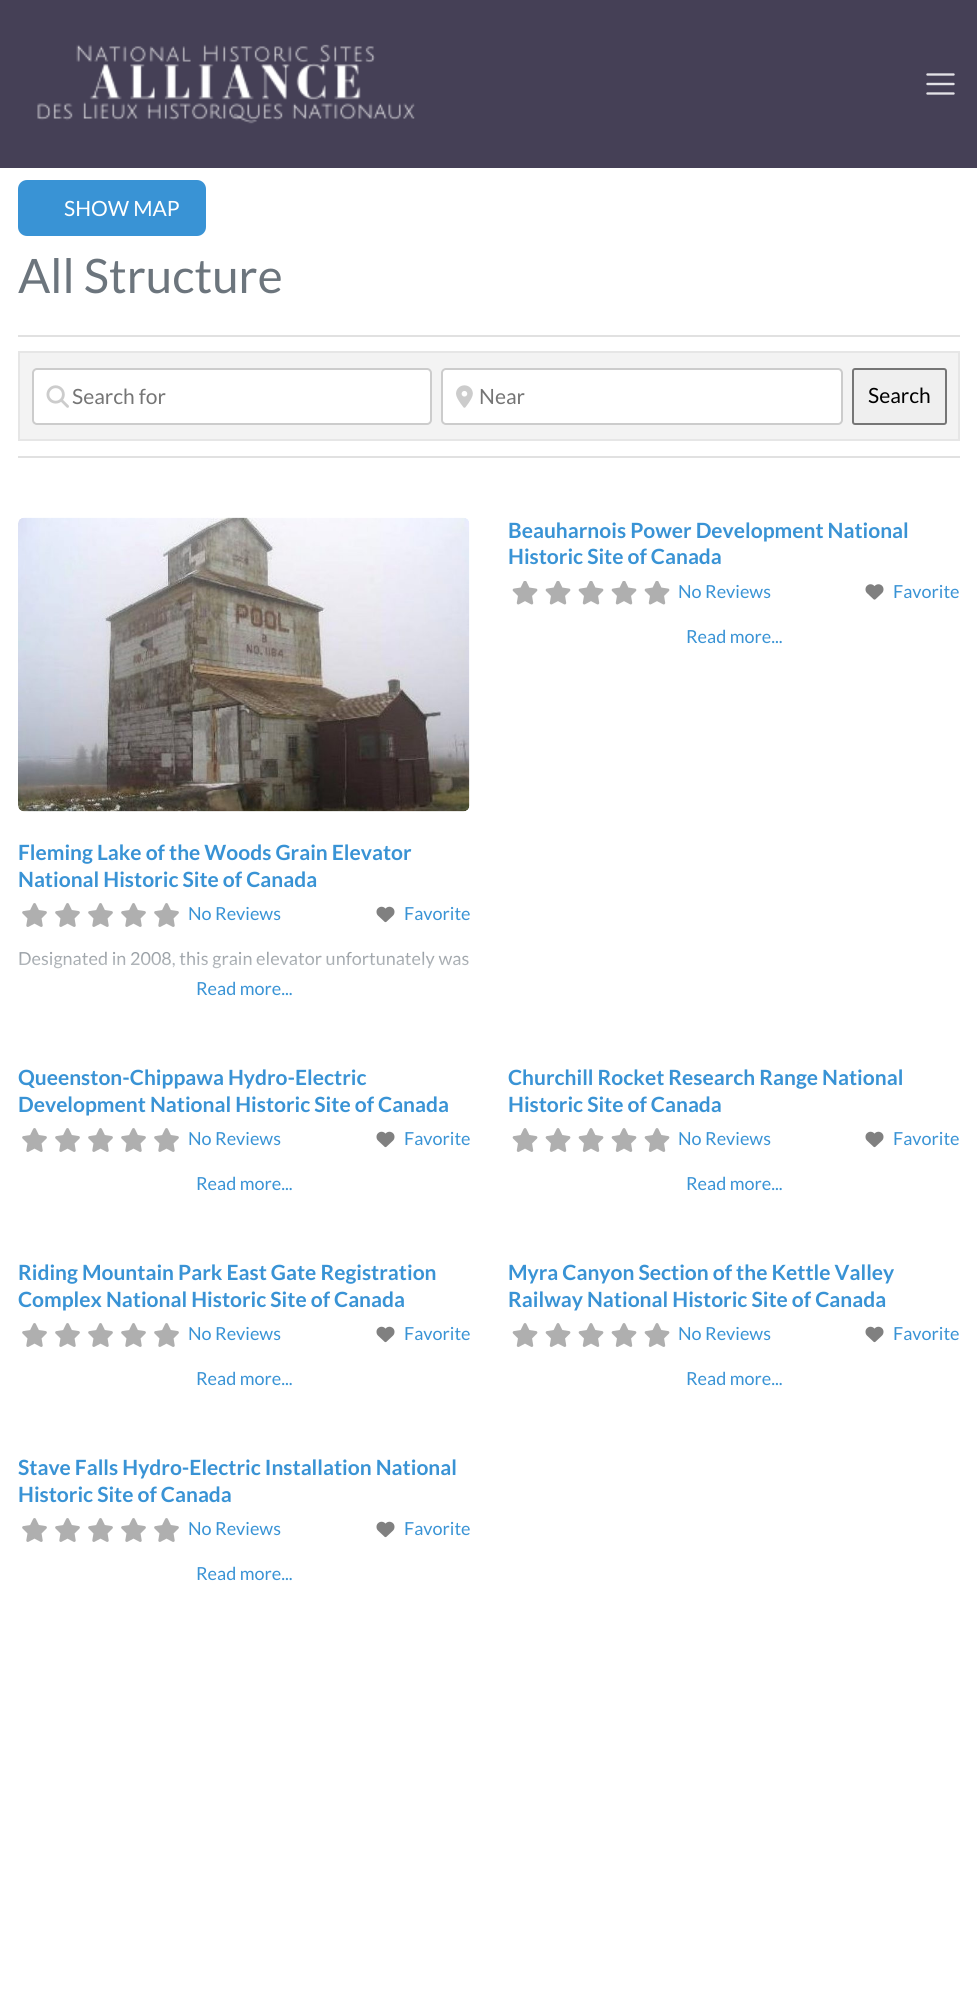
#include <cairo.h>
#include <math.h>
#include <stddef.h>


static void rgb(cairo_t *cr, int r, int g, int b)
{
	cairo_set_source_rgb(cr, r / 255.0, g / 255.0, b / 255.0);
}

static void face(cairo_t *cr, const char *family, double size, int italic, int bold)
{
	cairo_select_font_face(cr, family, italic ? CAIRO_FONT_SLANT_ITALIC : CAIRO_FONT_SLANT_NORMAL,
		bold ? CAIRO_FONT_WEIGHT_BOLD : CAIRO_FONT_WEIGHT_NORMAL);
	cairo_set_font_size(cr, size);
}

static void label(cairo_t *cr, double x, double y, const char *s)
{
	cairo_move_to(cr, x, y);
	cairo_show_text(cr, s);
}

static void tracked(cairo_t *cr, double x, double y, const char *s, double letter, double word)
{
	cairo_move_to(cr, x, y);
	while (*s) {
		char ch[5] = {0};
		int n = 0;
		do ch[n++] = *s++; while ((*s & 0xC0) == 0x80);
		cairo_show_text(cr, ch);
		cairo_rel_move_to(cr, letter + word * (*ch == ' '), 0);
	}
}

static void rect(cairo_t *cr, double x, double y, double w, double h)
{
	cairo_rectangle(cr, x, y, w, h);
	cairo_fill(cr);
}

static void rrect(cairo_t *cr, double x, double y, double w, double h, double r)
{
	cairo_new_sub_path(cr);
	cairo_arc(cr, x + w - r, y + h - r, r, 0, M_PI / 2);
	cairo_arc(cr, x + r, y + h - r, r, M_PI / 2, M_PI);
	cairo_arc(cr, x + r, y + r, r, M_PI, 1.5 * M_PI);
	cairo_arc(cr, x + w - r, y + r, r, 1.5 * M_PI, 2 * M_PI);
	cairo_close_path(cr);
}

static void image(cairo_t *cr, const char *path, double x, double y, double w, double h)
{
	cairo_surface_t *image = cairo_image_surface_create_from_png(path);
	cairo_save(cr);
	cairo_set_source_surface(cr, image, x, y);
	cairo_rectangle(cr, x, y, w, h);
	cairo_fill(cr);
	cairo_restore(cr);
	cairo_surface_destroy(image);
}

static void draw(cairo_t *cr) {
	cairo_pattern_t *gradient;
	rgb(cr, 255, 255, 255);
	cairo_paint(cr);
	rgb(cr, 69, 64, 86);
	rect(cr, 0, 0, 977, 168);
	image(cr, "image0.png", 37, 44, 378, 80);
	cairo_new_path(cr);
	cairo_move_to(cr, 927.5, 74.5);
	cairo_line_to(cr, 953.5, 74.5);
	cairo_move_to(cr, 927.5, 84);
	cairo_line_to(cr, 953.5, 84);
	cairo_move_to(cr, 927.5, 93.5);
	cairo_line_to(cr, 953.5, 93.5);
	rgb(cr, 227, 226, 230);
	cairo_set_line_width(cr, 2.4);
	cairo_set_line_cap(cr, CAIRO_LINE_CAP_ROUND);
	cairo_stroke(cr);
	rgb(cr, 57, 147, 213);
	rrect(cr, 19, 181, 186, 54, 8);
	cairo_fill_preserve(cr);
	cairo_set_line_width(cr, 2);
	cairo_set_line_cap(cr, CAIRO_LINE_CAP_BUTT);
	cairo_stroke(cr);
	face(cr, "Lato", 21, 0, 0);
	rgb(cr, 255, 255, 255);
	label(cr, 64, 216, "SHOW MAP");
	face(cr, "Lato", 47.5, 0, 0);
	rgb(cr, 108, 117, 125);
	label(cr, 18, 293, "All Structure");
	rgb(cr, 225, 225, 225);
	rect(cr, 18, 335, 942, 2);
	rect(cr, 18, 456, 942, 2);
	rgb(cr, 243, 243, 243);
	cairo_rectangle(cr, 19, 352, 940, 88);
	cairo_fill_preserve(cr);
	rgb(cr, 230, 230, 230);
	cairo_stroke(cr);
	rgb(cr, 255, 255, 255);
	rrect(cr, 33, 369, 398, 55, 4);
	cairo_fill_preserve(cr);
	rgb(cr, 204, 204, 204);
	cairo_stroke(cr);
	image(cr, "image1.png", 46, 385, 23, 23);
	face(cr, "Lato", 21, 0, 0);
	rgb(cr, 117, 117, 117);
	label(cr, 72, 404, "Search for");
	rgb(cr, 255, 255, 255);
	rrect(cr, 442, 369, 400, 55, 4);
	cairo_fill_preserve(cr);
	rgb(cr, 204, 204, 204);
	cairo_stroke(cr);
	image(cr, "image2.png", 456, 385, 17, 23);
	rgb(cr, 117, 117, 117);
	label(cr, 479, 404, "Near");
	rgb(cr, 239, 239, 239);
	rrect(cr, 853, 369, 93, 55, 2);
	cairo_fill_preserve(cr);
	rgb(cr, 118, 118, 118);
	cairo_stroke(cr);
	rgb(cr, 0, 0, 0);
	label(cr, 868, 403, "Search");
	face(cr, "Lato", 21, 0, 1);
	rgb(cr, 57, 147, 213);
	label(cr, 508, 538, "Beauharnois Power Development National");
	label(cr, 508, 564, "Historic Site of Canada");
	image(cr, "image3.png", 512, 581, 26, 24);
	image(cr, "image3.png", 545, 581, 26, 24);
	image(cr, "image3.png", 578, 581, 26, 24);
	image(cr, "image3.png", 611, 581, 26, 24);
	image(cr, "image3.png", 644, 581, 26, 24);
	face(cr, "Lato", 18, 0, 0);
	label(cr, 678, 598, "No Reviews");
	image(cr, "image4.png", 865, 584, 19, 16);
	label(cr, 893, 598, "Favorite");
	label(cr, 686, 643, "Read more...");
	image(cr, "image5.png", 18, 517, 452, 295);
	face(cr, "Lato", 21, 0, 1);
	label(cr, 18, 860, "Fleming Lake of the Woods Grain Elevator");
	label(cr, 18, 887, "National Historic Site of Canada");
	image(cr, "image6.png", 22, 903, 25, 24);
	image(cr, "image6.png", 55, 903, 25, 24);
	image(cr, "image6.png", 88, 903, 25, 24);
	image(cr, "image6.png", 121, 903, 25, 24);
	image(cr, "image6.png", 154, 903, 25, 24);
	face(cr, "Lato", 18, 0, 0);
	label(cr, 188, 920, "No Reviews");
	image(cr, "image7.png", 376, 906, 19, 17);
	label(cr, 404, 920, "Favorite");
	rgb(cr, 108, 117, 125);
	tracked(cr, 18, 965, "Designated in 2008, this grain elevator unfortunately was", 0, 0.25);
	gradient = cairo_pattern_create_linear(244, 930, 244, 1005);
	cairo_pattern_add_color_stop_rgba(gradient, 0, 1, 1, 1, 0);
	cairo_pattern_add_color_stop_rgba(gradient, 1, 1, 1, 1, 1);
	cairo_set_source(cr, gradient);
	cairo_pattern_destroy(gradient);
	rect(cr, 19, 951, 451, 18);
	rgb(cr, 57, 147, 213);
	label(cr, 196, 995, "Read more...");
	face(cr, "Lato", 21, 0, 1);
	label(cr, 18, 1085, "Queenston-Chippawa Hydro-Electric");
	label(cr, 18, 1112, "Development National Historic Site of Canada");
	image(cr, "image6.png", 22, 1128, 25, 24);
	image(cr, "image6.png", 55, 1128, 25, 24);
	image(cr, "image6.png", 88, 1128, 25, 24);
	image(cr, "image6.png", 121, 1128, 25, 24);
	image(cr, "image6.png", 154, 1128, 25, 24);
	face(cr, "Lato", 18, 0, 0);
	label(cr, 188, 1145, "No Reviews");
	image(cr, "image7.png", 376, 1131, 19, 17);
	label(cr, 404, 1145, "Favorite");
	label(cr, 196, 1190, "Read more...");
	face(cr, "Lato", 21, 0, 1);
	label(cr, 508, 1085, "Churchill Rocket Research Range National");
	label(cr, 508, 1112, "Historic Site of Canada");
	image(cr, "image8.png", 512, 1128, 26, 24);
	image(cr, "image8.png", 545, 1128, 26, 24);
	image(cr, "image8.png", 578, 1128, 26, 24);
	image(cr, "image8.png", 611, 1128, 26, 24);
	image(cr, "image8.png", 644, 1128, 26, 24);
	face(cr, "Lato", 18, 0, 0);
	label(cr, 678, 1145, "No Reviews");
	image(cr, "image7.png", 865, 1131, 19, 17);
	label(cr, 893, 1145, "Favorite");
	label(cr, 686, 1190, "Read more...");
	face(cr, "Lato", 21, 0, 1);
	label(cr, 18, 1280, "Riding Mountain Park East Gate Registration");
	label(cr, 18, 1307, "Complex National Historic Site of Canada");
	image(cr, "image6.png", 22, 1323, 25, 24);
	image(cr, "image6.png", 55, 1323, 25, 24);
	image(cr, "image6.png", 88, 1323, 25, 24);
	image(cr, "image6.png", 121, 1323, 25, 24);
	image(cr, "image6.png", 154, 1323, 25, 24);
	face(cr, "Lato", 18, 0, 0);
	label(cr, 188, 1340, "No Reviews");
	image(cr, "image7.png", 376, 1326, 19, 17);
	label(cr, 404, 1340, "Favorite");
	label(cr, 196, 1385, "Read more...");
	face(cr, "Lato", 21, 0, 1);
	label(cr, 508, 1280, "Myra Canyon Section of the Kettle Valley");
	label(cr, 508, 1307, "Railway National Historic Site of Canada");
	image(cr, "image8.png", 512, 1323, 26, 24);
	image(cr, "image8.png", 545, 1323, 26, 24);
	image(cr, "image8.png", 578, 1323, 26, 24);
	image(cr, "image8.png", 611, 1323, 26, 24);
	image(cr, "image8.png", 644, 1323, 26, 24);
	face(cr, "Lato", 18, 0, 0);
	label(cr, 678, 1340, "No Reviews");
	image(cr, "image7.png", 865, 1326, 19, 17);
	label(cr, 893, 1340, "Favorite");
	label(cr, 686, 1385, "Read more...");
	face(cr, "Lato", 21, 0, 1);
	label(cr, 18, 1475, "Stave Falls Hydro-Electric Installation National");
	label(cr, 18, 1502, "Historic Site of Canada");
	image(cr, "image6.png", 22, 1518, 25, 24);
	image(cr, "image6.png", 55, 1518, 25, 24);
	image(cr, "image6.png", 88, 1518, 25, 24);
	image(cr, "image6.png", 121, 1518, 25, 24);
	image(cr, "image6.png", 154, 1518, 25, 24);
	face(cr, "Lato", 18, 0, 0);
	label(cr, 188, 1535, "No Reviews");
	image(cr, "image7.png", 376, 1521, 19, 17);
	label(cr, 404, 1535, "Favorite");
	label(cr, 196, 1580, "Read more...");
}

int main(void) {
	cairo_surface_t *surface = cairo_image_surface_create(CAIRO_FORMAT_RGB24, 977, 2007);
	cairo_t *cr = cairo_create(surface);
	cairo_font_options_t *options = cairo_font_options_create();
	cairo_font_options_set_hint_metrics(options, CAIRO_HINT_METRICS_OFF);
	cairo_font_options_set_hint_style(options, CAIRO_HINT_STYLE_NONE);
	cairo_set_font_options(cr, options);
	cairo_set_miter_limit(cr, 4);
	draw(cr);
	cairo_surface_write_to_png(surface, "render.png");
	cairo_font_options_destroy(options);
	cairo_destroy(cr);
	cairo_surface_destroy(surface);
	return 0;
}
